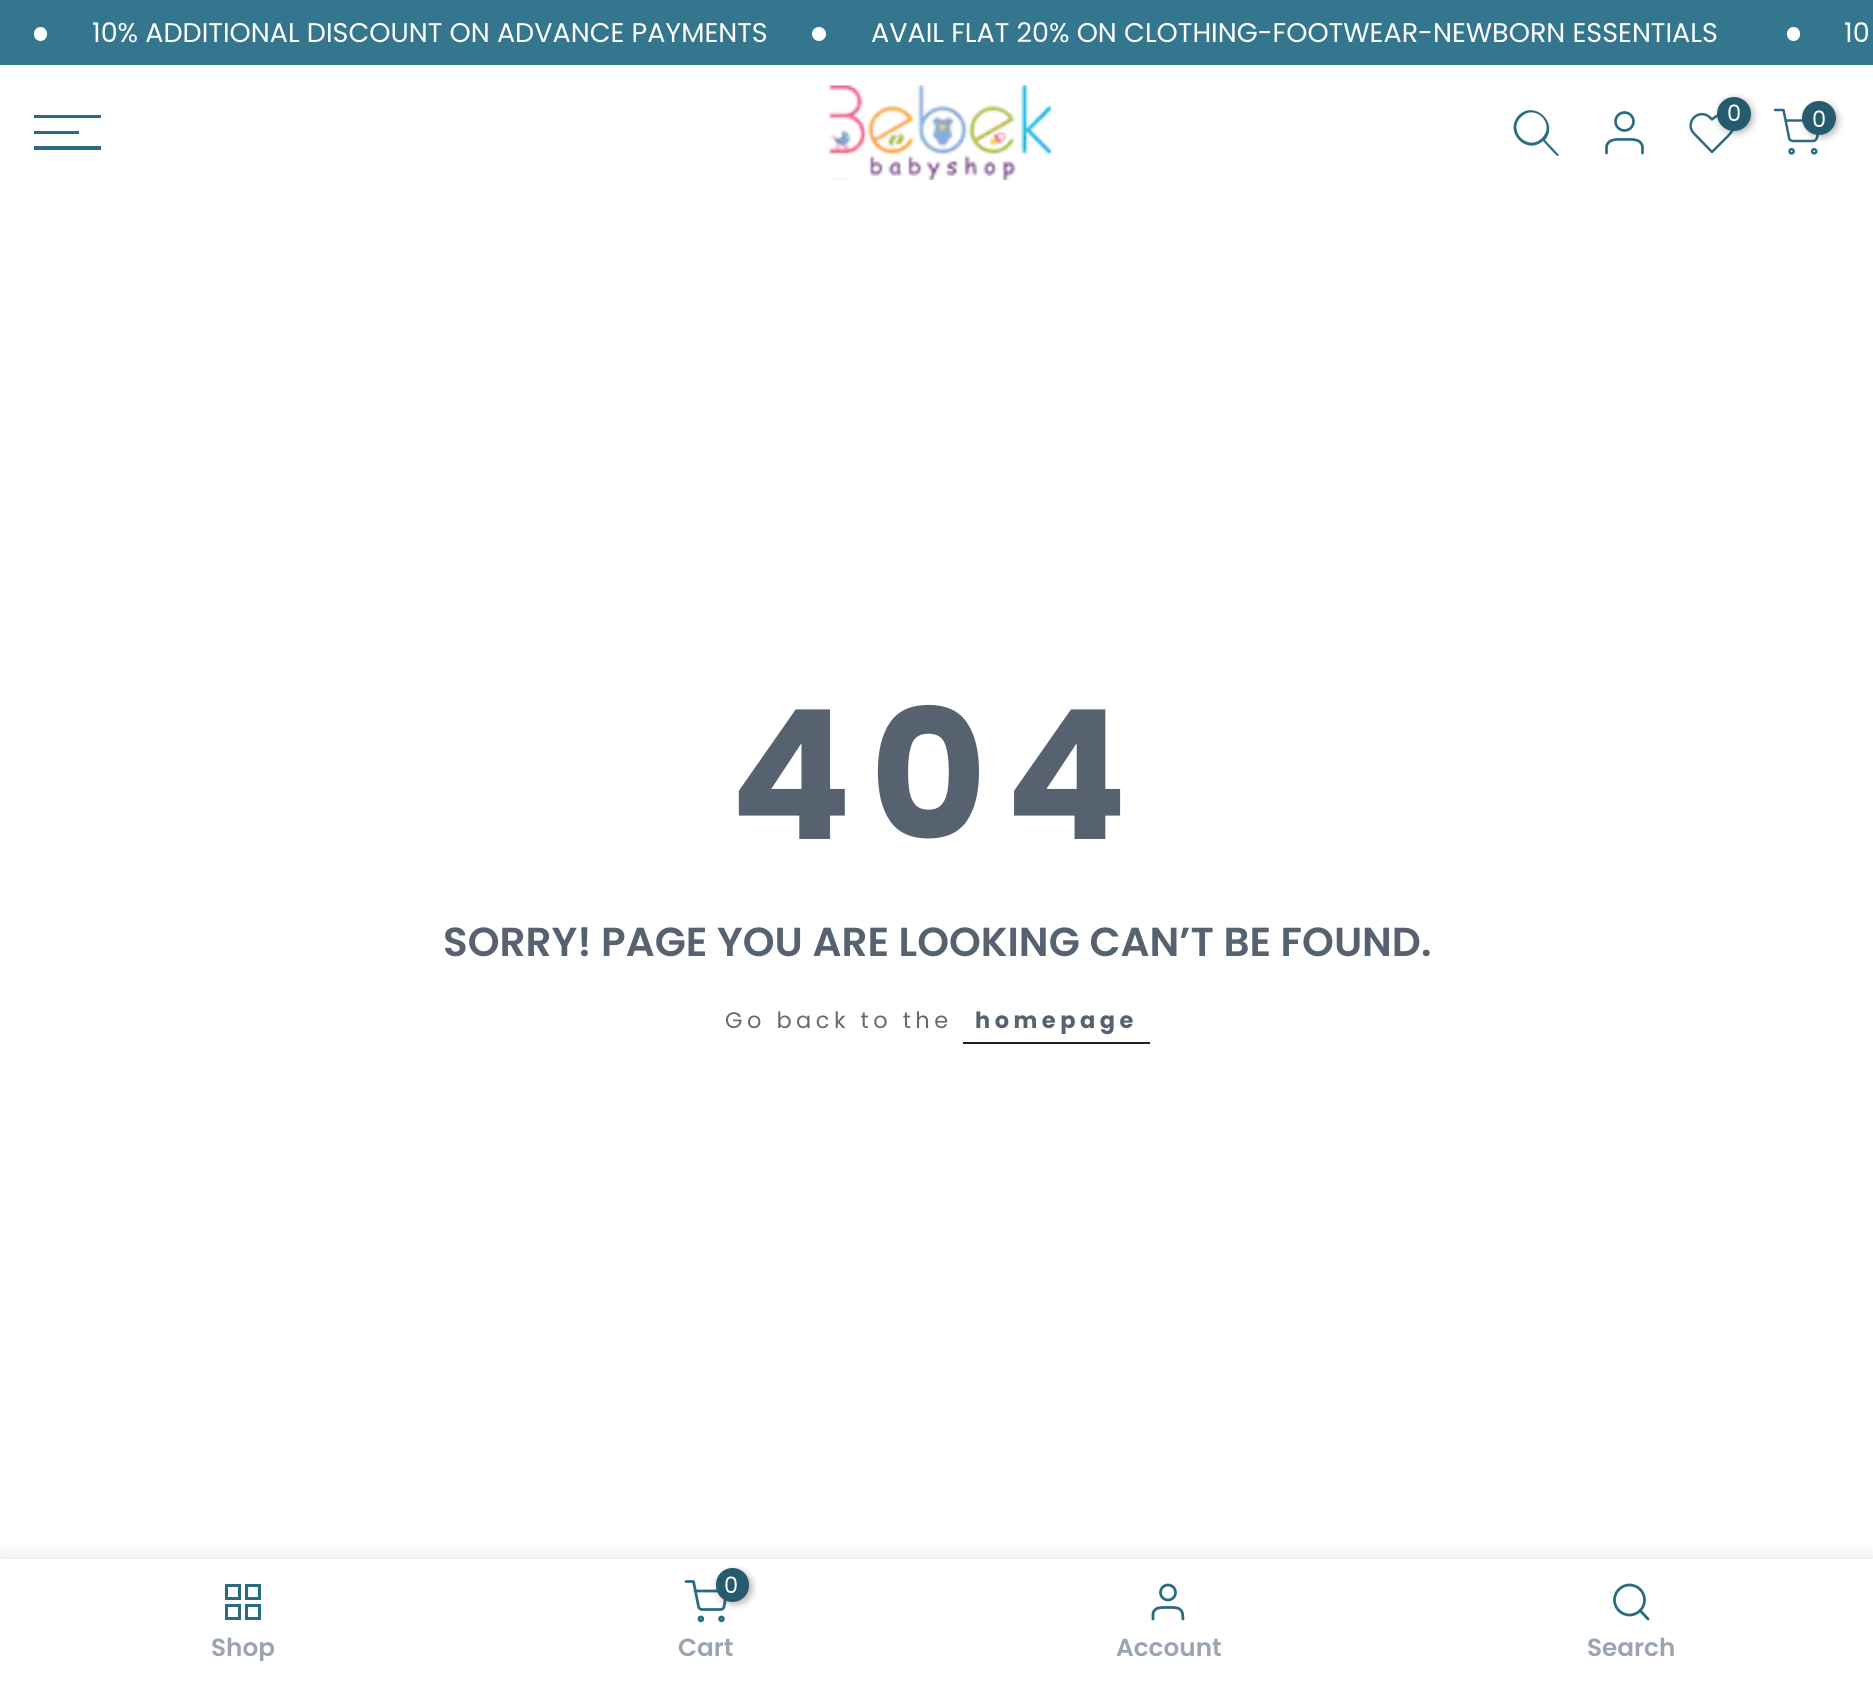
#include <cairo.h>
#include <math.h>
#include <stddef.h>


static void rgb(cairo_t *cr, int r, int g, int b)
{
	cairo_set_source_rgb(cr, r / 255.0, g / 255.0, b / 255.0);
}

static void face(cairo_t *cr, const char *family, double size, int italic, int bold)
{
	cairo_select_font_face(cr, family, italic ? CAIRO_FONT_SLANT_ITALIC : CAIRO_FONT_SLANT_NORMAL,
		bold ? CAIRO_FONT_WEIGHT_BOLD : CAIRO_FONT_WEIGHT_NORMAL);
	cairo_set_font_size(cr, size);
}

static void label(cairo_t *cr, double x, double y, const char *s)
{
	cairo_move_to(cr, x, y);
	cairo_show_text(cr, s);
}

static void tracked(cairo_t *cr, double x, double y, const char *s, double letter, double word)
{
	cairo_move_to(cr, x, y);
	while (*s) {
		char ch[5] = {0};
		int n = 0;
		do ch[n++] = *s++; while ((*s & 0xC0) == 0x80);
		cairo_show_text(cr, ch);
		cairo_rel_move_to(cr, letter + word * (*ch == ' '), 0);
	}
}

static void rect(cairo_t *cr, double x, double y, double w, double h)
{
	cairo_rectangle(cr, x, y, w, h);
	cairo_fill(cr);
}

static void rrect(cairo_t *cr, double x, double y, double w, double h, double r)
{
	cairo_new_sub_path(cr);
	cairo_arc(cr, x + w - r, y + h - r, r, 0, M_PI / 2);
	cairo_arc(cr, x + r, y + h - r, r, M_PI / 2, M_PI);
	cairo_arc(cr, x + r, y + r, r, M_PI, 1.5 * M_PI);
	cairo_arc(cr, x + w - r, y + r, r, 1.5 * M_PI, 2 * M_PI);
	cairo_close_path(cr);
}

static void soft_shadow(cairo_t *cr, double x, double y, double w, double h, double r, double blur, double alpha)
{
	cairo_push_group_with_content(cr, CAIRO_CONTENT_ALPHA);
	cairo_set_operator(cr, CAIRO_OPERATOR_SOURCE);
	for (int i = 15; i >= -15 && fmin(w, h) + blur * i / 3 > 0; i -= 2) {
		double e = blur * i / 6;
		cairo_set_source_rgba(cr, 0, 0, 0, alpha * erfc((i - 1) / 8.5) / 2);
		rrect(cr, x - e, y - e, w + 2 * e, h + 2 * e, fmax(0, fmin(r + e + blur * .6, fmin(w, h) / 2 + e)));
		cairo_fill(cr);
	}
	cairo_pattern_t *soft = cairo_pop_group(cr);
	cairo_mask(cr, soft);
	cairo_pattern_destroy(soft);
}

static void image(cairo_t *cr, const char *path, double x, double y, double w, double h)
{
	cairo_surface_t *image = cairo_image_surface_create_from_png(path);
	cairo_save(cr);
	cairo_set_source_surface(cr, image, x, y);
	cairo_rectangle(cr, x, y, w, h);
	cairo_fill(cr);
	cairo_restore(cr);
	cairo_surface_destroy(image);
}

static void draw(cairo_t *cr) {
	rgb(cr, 255, 255, 255);
	cairo_paint(cr);
	rgb(cr, 53, 118, 143);
	rect(cr, 0, 0, 1873, 65);
	rgb(cr, 255, 255, 255);
	rrect(cr, 34, 27, 13, 14, 6.5);
	cairo_fill(cr);
	face(cr, "Poppins", 27, 0, 0);
	label(cr, 92, 42, "10% ADDITIONAL DISCOUNT ON ADVANCE PAYMENTS");
	cairo_new_path(cr);
	cairo_arc(cr, 819, 34, 7, 0, 2 * M_PI);
	cairo_fill(cr);
	label(cr, 871, 42, "AVAIL FLAT 20% ON CLOTHING-FOOTWEAR-NEWBORN ESSENTIALS");
	rrect(cr, 1787, 27, 13, 14, 6.5);
	cairo_fill(cr);
	label(cr, 1844, 42, "10");
	rgb(cr, 44, 106, 129);
	rect(cr, 34, 115, 67, 3);
	rect(cr, 34, 131, 45, 3);
	rect(cr, 34, 146, 67, 4);
	image(cr, "image0.png", 827, 85, 225, 96);
	cairo_set_fill_rule(cr, CAIRO_FILL_RULE_EVEN_ODD);
	cairo_new_path(cr);
	cairo_move_to(cr, 1542, 138);
	cairo_curve_to(cr, 1528, 152, 1507, 131, 1521, 117);
	cairo_curve_to(cr, 1535, 103, 1556, 124, 1542, 138);
	cairo_close_path(cr);
	cairo_move_to(cr, 1543, 141);
	cairo_curve_to(cr, 1526, 156, 1503, 131, 1519, 115);
	cairo_curve_to(cr, 1535, 100, 1559, 123, 1545, 140);
	cairo_line_to(cr, 1559, 155);
	cairo_line_to(cr, 1558, 156);
	cairo_curve_to(cr, 1557, 157, 1545, 143, 1543, 141);
	cairo_close_path(cr);
	cairo_fill(cr);
	cairo_arc(cr, 1624.5, 121.5, 9, 0, 2 * M_PI);
	cairo_set_line_width(cr, 2.7);
	cairo_stroke(cr);
	cairo_new_path(cr);
	cairo_move_to(cr, 1642.5, 153);
	cairo_line_to(cr, 1642.5, 146.5);
	cairo_curve_to(cr, 1640.5, 138, 1631, 139.5, 1624.5, 139.5);
	cairo_curve_to(cr, 1618, 139.5, 1608.5, 138, 1606.5, 146.5);
	cairo_line_to(cr, 1606.5, 153);
	cairo_set_line_cap(cr, CAIRO_LINE_CAP_ROUND);
	cairo_set_line_join(cr, CAIRO_LINE_JOIN_ROUND);
	cairo_stroke(cr);
	cairo_new_path(cr);
	cairo_move_to(cr, 1730.5, 117.5);
	cairo_curve_to(cr, 1724.5, 111.5, 1717.5, 114.5, 1712, 119.5);
	cairo_line_to(cr, 1710, 117.5);
	cairo_curve_to(cr, 1705.5, 113, 1698.5, 113, 1694, 117.5);
	cairo_curve_to(cr, 1689.5, 122, 1689.5, 129, 1694, 133.5);
	cairo_line_to(cr, 1712, 152);
	cairo_line_to(cr, 1723, 141);
	cairo_curve_to(cr, 1729, 135, 1739.5, 126.5, 1730.5, 117.5);
	cairo_close_path(cr);
	cairo_set_line_width(cr, 2.5);
	cairo_stroke(cr);
	rgb(cr, 0, 0, 0);
	soft_shadow(cr, 1719, 99, 34, 34, 17, 3.5, 0.3);
	rgb(cr, 38, 91, 110);
	cairo_arc(cr, 1734, 114, 17, 0, 2 * M_PI);
	cairo_fill(cr);
	face(cr, "Poppins", 22.5, 0, 0);
	rgb(cr, 255, 255, 255);
	label(cr, 1727, 121, "0");
	cairo_new_path(cr);
	cairo_move_to(cr, 1775, 110);
	cairo_line_to(cr, 1783.5, 110);
	cairo_line_to(cr, 1789, 137.5);
	cairo_curve_to(cr, 1789, 139.5, 1791, 141, 1793, 141);
	cairo_line_to(cr, 1813, 141);
	cairo_curve_to(cr, 1815, 141, 1816.5, 139.5, 1817, 137.5);
	cairo_line_to(cr, 1820.5, 120.5);
	cairo_line_to(cr, 1785.5, 120.5);
	rgb(cr, 44, 106, 129);
	cairo_stroke(cr);
	cairo_arc(cr, 1791.6, 151.3, 2.1, 0, 2 * M_PI);
	cairo_set_line_cap(cr, CAIRO_LINE_CAP_BUTT);
	cairo_set_line_join(cr, CAIRO_LINE_JOIN_MITER);
	cairo_stroke(cr);
	cairo_arc(cr, 1814.2, 151.3, 2.1, 0, 2 * M_PI);
	cairo_stroke(cr);
	rgb(cr, 0, 0, 0);
	soft_shadow(cr, 1805, 104, 33, 33, 16.5, 3.5, 0.3);
	rgb(cr, 38, 91, 110);
	cairo_arc(cr, 1819, 118, 17, 0, 2 * M_PI);
	cairo_fill(cr);
	rgb(cr, 255, 255, 255);
	label(cr, 1812, 127, "0");
	face(cr, "Poppins", 180, 0, 1);
	rgb(cr, 87, 98, 113);
	tracked(cr, 730, 839, "404", 18, 0);
	face(cr, "Poppins SemiBold", 40.5, 0, 0);
	label(cr, 443, 956, "SORRY! PAGE YOU ARE LOOKING CAN’T BE FOUND.");
	face(cr, "Poppins", 22.5, 0, 0);
	rgb(cr, 105, 105, 105);
	tracked(cr, 725, 1028, "Go back to the", 4.5, 0);
	face(cr, "Poppins", 22.5, 0, 1);
	rgb(cr, 87, 98, 113);
	tracked(cr, 975, 1028, "homepage", 4.5, 0);
	rgb(cr, 34, 34, 34);
	rect(cr, 963, 1042, 187, 2);
	rgb(cr, 0, 0, 0);
	soft_shadow(cr, 0, 1559, 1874, 124, 0, 10, 0.12);
	rgb(cr, 255, 255, 255);
	rect(cr, 0, 1559, 1873, 124);
	cairo_rectangle(cr, 226.5, 1585.5, 13, 13);
	rgb(cr, 44, 106, 129);
	cairo_set_line_width(cr, 3);
	cairo_stroke(cr);
	cairo_rectangle(cr, 246.5, 1585.5, 13, 13);
	cairo_stroke(cr);
	cairo_rectangle(cr, 226.5, 1605.5, 13, 13);
	cairo_stroke(cr);
	cairo_rectangle(cr, 246.5, 1605.5, 13, 13);
	cairo_stroke(cr);
	cairo_save(cr);
	cairo_set_fill_rule(cr, CAIRO_FILL_RULE_WINDING);
	cairo_rectangle(cr, 34, 1636, 418, 25);
	cairo_clip(cr);
	face(cr, "Poppins SemiBold", 24.75, 0, 0);
	rgb(cr, 155, 165, 178);
	label(cr, 211, 1656, "Shop");
	cairo_restore(cr);
	cairo_new_path(cr);
	cairo_move_to(cr, 686, 1581.5);
	cairo_line_to(cr, 693.5, 1581.5);
	cairo_line_to(cr, 698.5, 1606.5);
	cairo_curve_to(cr, 699, 1608.5, 700.5, 1609.5, 702, 1609.5);
	cairo_line_to(cr, 720.5, 1609.5);
	cairo_curve_to(cr, 722, 1609.5, 724, 1608.5, 724, 1606.5);
	cairo_line_to(cr, 727, 1591);
	cairo_line_to(cr, 695, 1591);
	cairo_set_line_width(cr, 2.8);
	cairo_set_line_cap(cr, CAIRO_LINE_CAP_ROUND);
	cairo_set_line_join(cr, CAIRO_LINE_JOIN_ROUND);
	cairo_stroke(cr);
	cairo_arc(cr, 721.5, 1618.9, 1.9, 0, 2 * M_PI);
	cairo_set_line_cap(cr, CAIRO_LINE_CAP_BUTT);
	cairo_set_line_join(cr, CAIRO_LINE_JOIN_MITER);
	cairo_stroke(cr);
	rgb(cr, 0, 0, 0);
	soft_shadow(cr, 718, 1571, 34, 33, 16.5, 3.5, 0.3);
	rgb(cr, 38, 91, 110);
	rrect(cr, 716, 1568, 33, 34, 16.5);
	cairo_fill(cr);
	face(cr, "Poppins", 22.5, 0, 0);
	rgb(cr, 255, 255, 255);
	label(cr, 724, 1593, "0");
	cairo_new_path(cr);
	cairo_arc(cr, 700.9, 1618.9, 1.9, 0, 2 * M_PI);
	rgb(cr, 44, 106, 129);
	cairo_stroke(cr);
	face(cr, "Poppins SemiBold", 24.75, 0, 0);
	rgb(cr, 155, 165, 178);
	label(cr, 678, 1656, "Cart");
	cairo_new_path(cr);
	cairo_arc(cr, 1168, 1592.5, 7.5, 0, 2 * M_PI);
	rgb(cr, 44, 106, 129);
	cairo_stroke(cr);
	cairo_new_path(cr);
	cairo_move_to(cr, 1183, 1619);
	cairo_line_to(cr, 1182.5, 1613.5);
	cairo_curve_to(cr, 1181, 1606.5, 1173, 1607.5, 1168, 1607.5);
	cairo_curve_to(cr, 1162.5, 1607.5, 1154.5, 1606.5, 1153, 1613.5);
	cairo_line_to(cr, 1153, 1619);
	cairo_set_line_cap(cr, CAIRO_LINE_CAP_ROUND);
	cairo_set_line_join(cr, CAIRO_LINE_JOIN_ROUND);
	cairo_stroke(cr);
	rgb(cr, 155, 165, 178);
	label(cr, 1116, 1656, "Account");
	cairo_new_path(cr);
	cairo_arc(cr, 1629.5, 1600, 15, 0, 2 * M_PI);
	rgb(cr, 44, 106, 129);
	cairo_set_line_cap(cr, CAIRO_LINE_CAP_BUTT);
	cairo_set_line_join(cr, CAIRO_LINE_JOIN_MITER);
	cairo_stroke(cr);
	cairo_new_path(cr);
	cairo_move_to(cr, 1648, 1619);
	cairo_line_to(cr, 1640, 1610.5);
	cairo_set_line_cap(cr, CAIRO_LINE_CAP_ROUND);
	cairo_set_line_join(cr, CAIRO_LINE_JOIN_ROUND);
	cairo_stroke(cr);
	rgb(cr, 155, 165, 178);
	label(cr, 1587, 1656, "Search");
}

int main(void) {
	cairo_surface_t *surface = cairo_image_surface_create(CAIRO_FORMAT_RGB24, 1873, 1683);
	cairo_t *cr = cairo_create(surface);
	cairo_font_options_t *options = cairo_font_options_create();
	cairo_font_options_set_hint_metrics(options, CAIRO_HINT_METRICS_OFF);
	cairo_font_options_set_hint_style(options, CAIRO_HINT_STYLE_NONE);
	cairo_set_font_options(cr, options);
	cairo_set_miter_limit(cr, 4);
	draw(cr);
	cairo_surface_write_to_png(surface, "render.png");
	cairo_font_options_destroy(options);
	cairo_destroy(cr);
	cairo_surface_destroy(surface);
	return 0;
}
